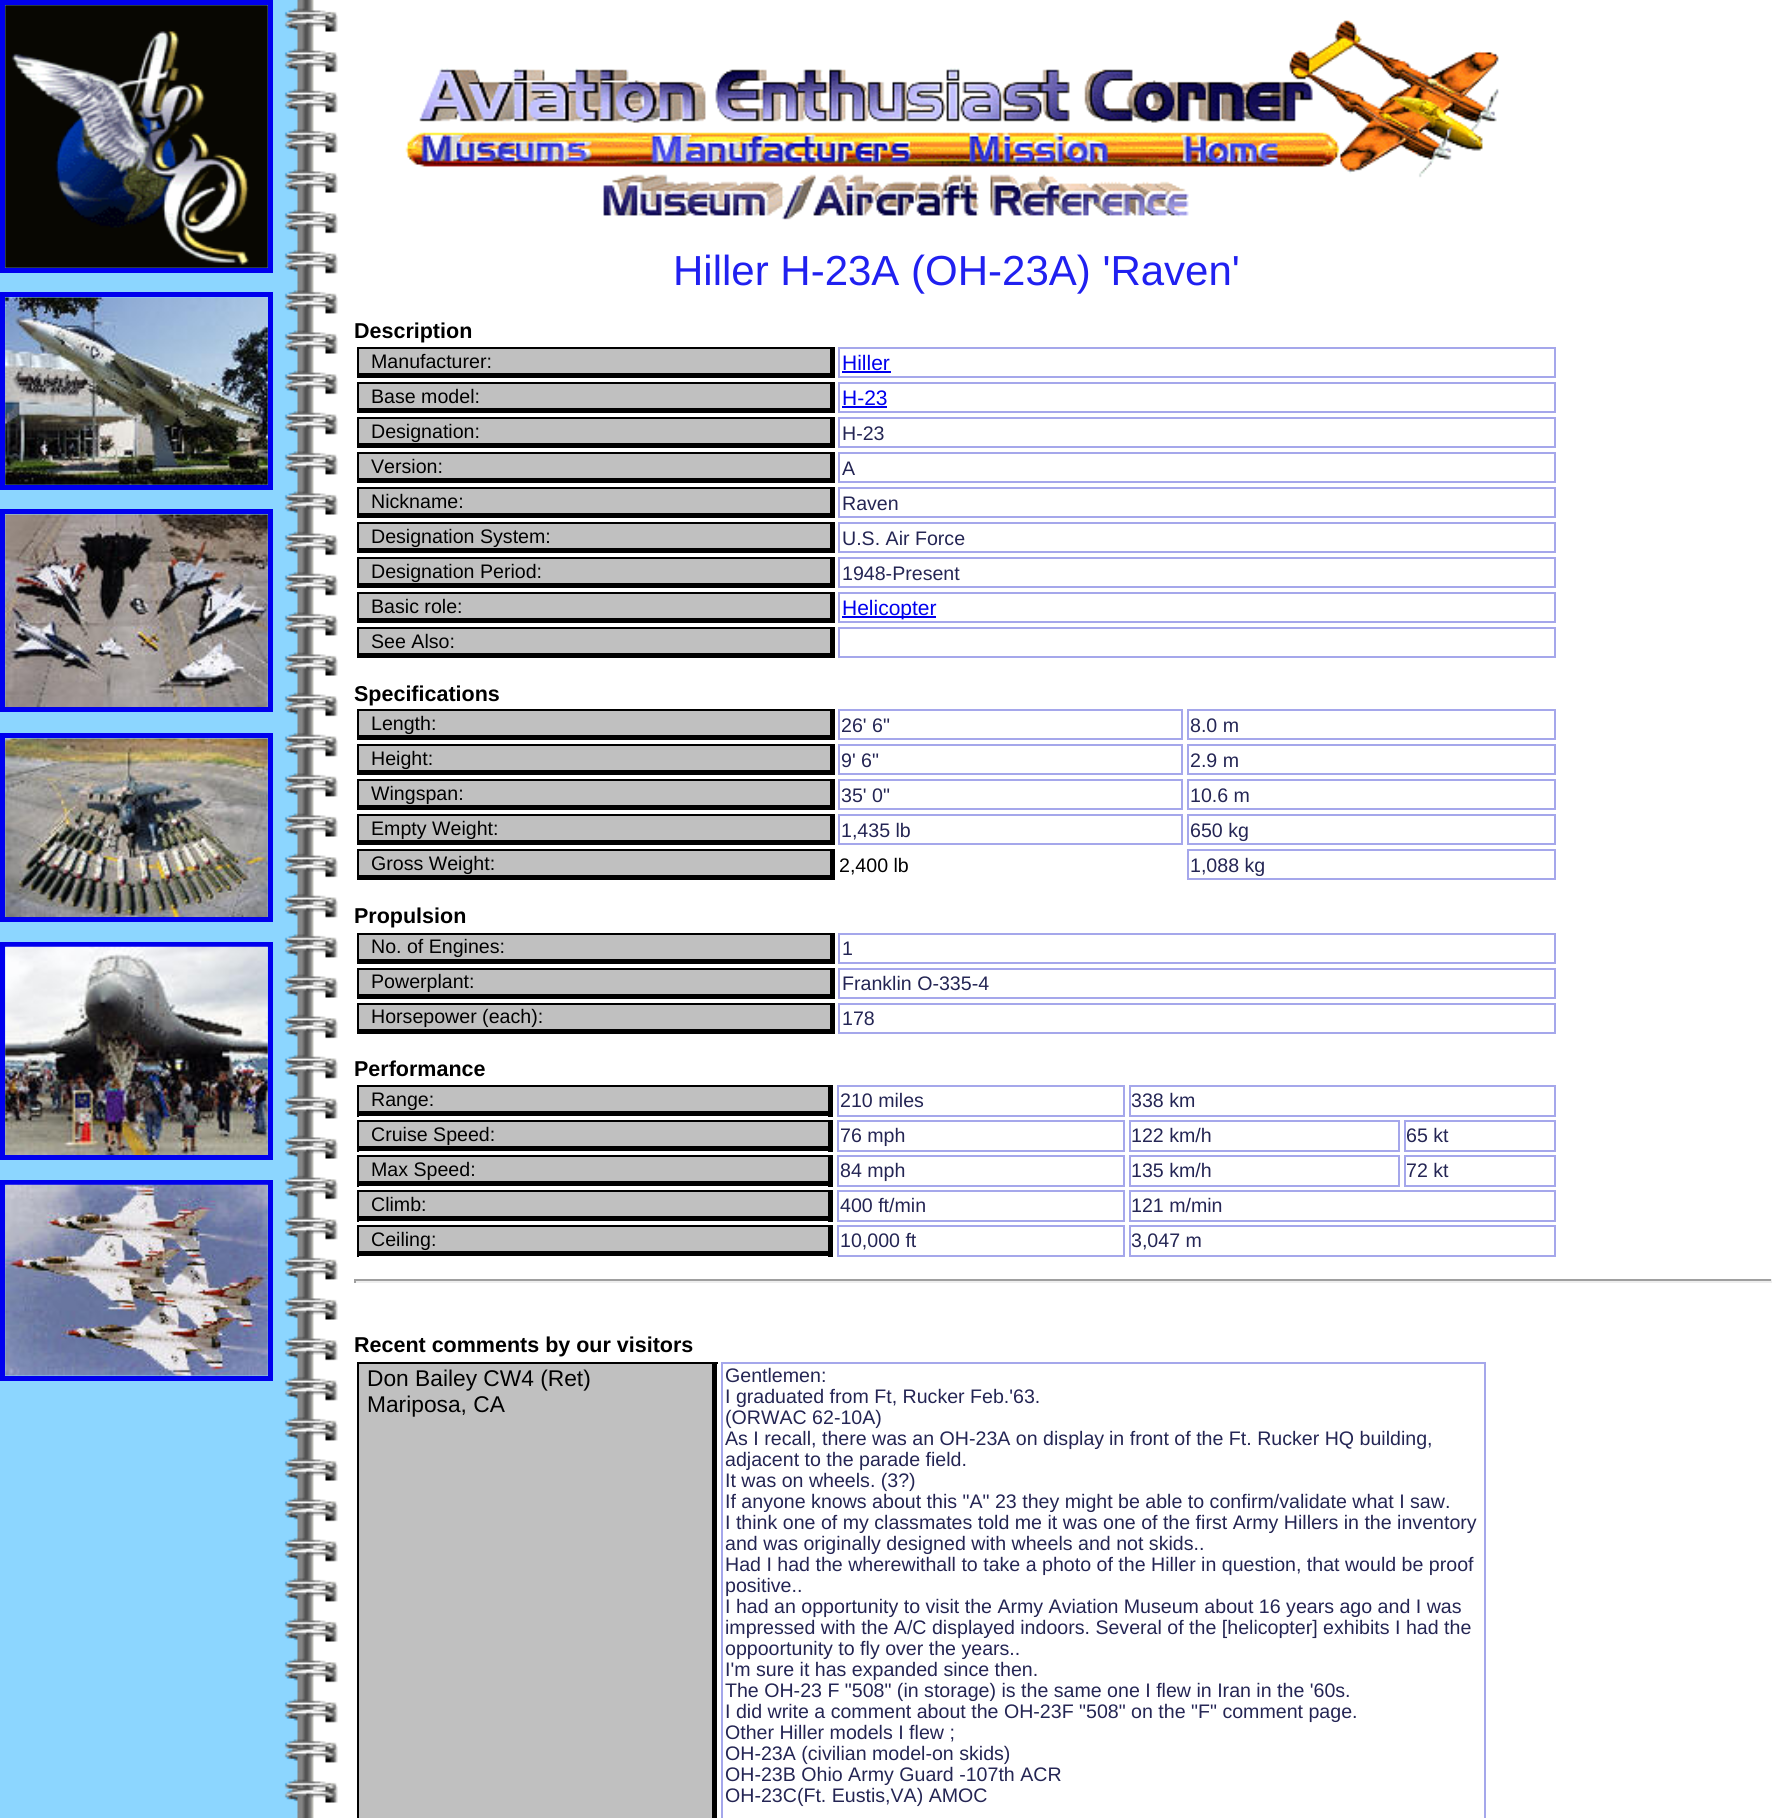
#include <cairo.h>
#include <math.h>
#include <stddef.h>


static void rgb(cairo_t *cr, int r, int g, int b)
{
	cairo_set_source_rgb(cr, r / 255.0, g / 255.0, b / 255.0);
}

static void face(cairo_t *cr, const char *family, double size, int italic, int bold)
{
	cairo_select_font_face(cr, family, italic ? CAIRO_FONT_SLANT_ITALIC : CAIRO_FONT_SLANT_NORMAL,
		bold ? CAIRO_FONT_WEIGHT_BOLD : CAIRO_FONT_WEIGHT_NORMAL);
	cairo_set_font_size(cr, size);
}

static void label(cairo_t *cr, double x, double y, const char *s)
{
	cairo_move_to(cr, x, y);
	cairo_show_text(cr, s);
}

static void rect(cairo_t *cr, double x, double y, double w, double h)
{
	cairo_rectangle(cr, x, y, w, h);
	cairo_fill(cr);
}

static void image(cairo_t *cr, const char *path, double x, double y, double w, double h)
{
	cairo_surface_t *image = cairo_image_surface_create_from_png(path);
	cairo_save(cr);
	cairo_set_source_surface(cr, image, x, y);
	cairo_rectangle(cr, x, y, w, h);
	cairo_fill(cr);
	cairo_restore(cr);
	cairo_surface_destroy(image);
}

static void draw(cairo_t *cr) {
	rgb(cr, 255, 255, 255);
	cairo_paint(cr);
	rgb(cr, 140, 214, 255);
	rect(cr, 0, 5, 273, 1813);
	cairo_rectangle(cr, 2.5, 2.5, 268, 268);
	rgb(cr, 0, 0, 238);
	cairo_set_line_width(cr, 5);
	cairo_stroke(cr);
	image(cr, "image0.png", 5, 5, 263, 263);
	cairo_rectangle(cr, 2.5, 294.5, 268, 193);
	cairo_stroke(cr);
	image(cr, "image1.png", 5, 297, 263, 188);
	cairo_rectangle(cr, 2.5, 511.5, 268, 198);
	cairo_stroke(cr);
	image(cr, "image2.png", 5, 514, 263, 193);
	cairo_rectangle(cr, 2.5, 735.5, 268, 184);
	cairo_stroke(cr);
	image(cr, "image3.png", 5, 738, 263, 179);
	cairo_rectangle(cr, 2.5, 944.5, 268, 213);
	cairo_stroke(cr);
	image(cr, "image4.png", 5, 946, 263, 209);
	cairo_rectangle(cr, 2.5, 1182.5, 268, 196);
	cairo_stroke(cr);
	image(cr, "image5.png", 5, 1184, 263, 192);
	image(cr, "image6.png", 273, 0, 65, 1818);
	image(cr, "image7.png", 405, 20, 1094, 200);
	face(cr, "Liberation Sans", 42, 0, 0);
	rgb(cr, 32, 32, 240);
	label(cr, 673, 285, "Hiller H-23A (OH-23A) 'Raven'");
	face(cr, "Liberation Sans", 21.5, 0, 1);
	rgb(cr, 0, 0, 0);
	label(cr, 354, 338, "Description");
	rgb(cr, 192, 192, 192);
	rect(cr, 359, 349, 471, 24);
	rgb(cr, 0, 0, 0);
	rect(cr, 357, 347, 478, 2);
	rect(cr, 830, 347, 5, 31);
	rect(cr, 357, 373, 478, 5);
	rect(cr, 357, 347, 2, 31);
	face(cr, "Liberation Sans", 19.6, 0, 0);
	label(cr, 371, 368, "Manufacturer:");
	cairo_rectangle(cr, 839, 348, 716, 29);
	rgb(cr, 165, 167, 235);
	cairo_set_line_width(cr, 2);
	cairo_stroke(cr);
	face(cr, "Liberation Sans", 21, 0, 0);
	rgb(cr, 0, 0, 238);
	label(cr, 842, 370, "Hiller");
	rect(cr, 842, 371, 49, 2);
	rgb(cr, 192, 192, 192);
	rect(cr, 359, 384, 471, 24);
	rgb(cr, 0, 0, 0);
	rect(cr, 357, 382, 478, 2);
	rect(cr, 830, 382, 5, 31);
	rect(cr, 357, 408, 478, 5);
	rect(cr, 357, 382, 2, 31);
	face(cr, "Liberation Sans", 19.6, 0, 0);
	label(cr, 371, 403, "Base model:");
	cairo_rectangle(cr, 839, 383, 716, 29);
	rgb(cr, 165, 167, 235);
	cairo_stroke(cr);
	face(cr, "Liberation Sans", 21, 0, 0);
	rgb(cr, 0, 0, 238);
	label(cr, 842, 405, "H-23");
	rect(cr, 842, 406, 45, 2);
	rgb(cr, 192, 192, 192);
	rect(cr, 359, 419, 471, 24);
	rgb(cr, 0, 0, 0);
	rect(cr, 357, 417, 478, 2);
	rect(cr, 830, 417, 5, 31);
	rect(cr, 357, 443, 478, 5);
	rect(cr, 357, 417, 2, 31);
	face(cr, "Liberation Sans", 19.6, 0, 0);
	label(cr, 371, 438, "Designation:");
	cairo_rectangle(cr, 839, 418, 716, 29);
	rgb(cr, 165, 167, 235);
	cairo_stroke(cr);
	rgb(cr, 36, 37, 84);
	label(cr, 842, 440, "H-23");
	rgb(cr, 192, 192, 192);
	rect(cr, 359, 454, 471, 24);
	rgb(cr, 0, 0, 0);
	rect(cr, 357, 452, 478, 2);
	rect(cr, 830, 452, 5, 31);
	rect(cr, 357, 478, 478, 5);
	rect(cr, 357, 452, 2, 31);
	label(cr, 371, 473, "Version:");
	cairo_rectangle(cr, 839, 453, 716, 29);
	rgb(cr, 165, 167, 235);
	cairo_stroke(cr);
	rgb(cr, 36, 37, 84);
	label(cr, 842, 475, "A");
	rgb(cr, 192, 192, 192);
	rect(cr, 359, 489, 471, 24);
	rgb(cr, 0, 0, 0);
	rect(cr, 357, 487, 478, 2);
	rect(cr, 830, 487, 5, 31);
	rect(cr, 357, 513, 478, 5);
	rect(cr, 357, 487, 2, 31);
	label(cr, 371, 508, "Nickname:");
	cairo_rectangle(cr, 839, 488, 716, 29);
	rgb(cr, 165, 167, 235);
	cairo_stroke(cr);
	rgb(cr, 36, 37, 84);
	label(cr, 842, 510, "Raven");
	rgb(cr, 192, 192, 192);
	rect(cr, 359, 524, 471, 24);
	rgb(cr, 0, 0, 0);
	rect(cr, 357, 522, 478, 2);
	rect(cr, 830, 522, 5, 31);
	rect(cr, 357, 548, 478, 5);
	rect(cr, 357, 522, 2, 31);
	label(cr, 371, 543, "Designation System:");
	cairo_rectangle(cr, 839, 523, 716, 29);
	rgb(cr, 165, 167, 235);
	cairo_stroke(cr);
	rgb(cr, 36, 37, 84);
	label(cr, 842, 545, "U.S. Air Force");
	rgb(cr, 192, 192, 192);
	rect(cr, 359, 559, 471, 24);
	rgb(cr, 0, 0, 0);
	rect(cr, 357, 557, 478, 2);
	rect(cr, 830, 557, 5, 31);
	rect(cr, 357, 583, 478, 5);
	rect(cr, 357, 557, 2, 31);
	label(cr, 371, 578, "Designation Period:");
	cairo_rectangle(cr, 839, 558, 716, 29);
	rgb(cr, 165, 167, 235);
	cairo_stroke(cr);
	rgb(cr, 36, 37, 84);
	label(cr, 842, 580, "1948-Present");
	rgb(cr, 192, 192, 192);
	rect(cr, 359, 594, 471, 24);
	rgb(cr, 0, 0, 0);
	rect(cr, 357, 592, 478, 2);
	rect(cr, 830, 592, 5, 31);
	rect(cr, 357, 618, 478, 5);
	rect(cr, 357, 592, 2, 31);
	label(cr, 371, 613, "Basic role:");
	cairo_rectangle(cr, 839, 593, 716, 29);
	rgb(cr, 165, 167, 235);
	cairo_stroke(cr);
	rgb(cr, 0, 0, 238);
	rect(cr, 842, 616, 94, 2);
	face(cr, "Liberation Sans", 21, 0, 0);
	label(cr, 842, 615, "Helicopter");
	rgb(cr, 192, 192, 192);
	rect(cr, 359, 629, 471, 24);
	rgb(cr, 0, 0, 0);
	rect(cr, 357, 627, 478, 2);
	rect(cr, 830, 627, 5, 31);
	rect(cr, 357, 653, 478, 5);
	rect(cr, 357, 627, 2, 31);
	face(cr, "Liberation Sans", 19.6, 0, 0);
	label(cr, 371, 648, "See Also:");
	cairo_rectangle(cr, 839, 628, 716, 29);
	rgb(cr, 165, 167, 235);
	cairo_stroke(cr);
	face(cr, "Liberation Sans", 21.5, 0, 1);
	rgb(cr, 0, 0, 0);
	label(cr, 354, 701, "Specifications");
	rgb(cr, 192, 192, 192);
	rect(cr, 359, 711, 471, 24);
	rgb(cr, 0, 0, 0);
	rect(cr, 357, 709, 478, 2);
	rect(cr, 830, 709, 5, 31);
	rect(cr, 357, 735, 478, 5);
	rect(cr, 357, 709, 2, 31);
	face(cr, "Liberation Sans", 19.6, 0, 0);
	label(cr, 371, 730, "Length:");
	cairo_rectangle(cr, 839, 710, 343, 29);
	rgb(cr, 165, 167, 235);
	cairo_stroke(cr);
	rgb(cr, 36, 37, 84);
	label(cr, 841, 732, "26' 6\"");
	cairo_rectangle(cr, 1188, 710, 367, 29);
	rgb(cr, 165, 167, 235);
	cairo_stroke(cr);
	rgb(cr, 36, 37, 84);
	label(cr, 1190, 732, "8.0 m");
	rgb(cr, 192, 192, 192);
	rect(cr, 359, 746, 471, 24);
	rgb(cr, 0, 0, 0);
	rect(cr, 357, 744, 478, 2);
	rect(cr, 830, 744, 5, 31);
	rect(cr, 357, 770, 478, 5);
	rect(cr, 357, 744, 2, 31);
	label(cr, 371, 765, "Height:");
	cairo_rectangle(cr, 839, 745, 343, 29);
	rgb(cr, 165, 167, 235);
	cairo_stroke(cr);
	rgb(cr, 36, 37, 84);
	label(cr, 841, 767, "9' 6\"");
	cairo_rectangle(cr, 1188, 745, 367, 29);
	rgb(cr, 165, 167, 235);
	cairo_stroke(cr);
	rgb(cr, 36, 37, 84);
	label(cr, 1190, 767, "2.9 m");
	rgb(cr, 192, 192, 192);
	rect(cr, 359, 781, 471, 24);
	rgb(cr, 0, 0, 0);
	rect(cr, 357, 779, 478, 2);
	rect(cr, 830, 779, 5, 31);
	rect(cr, 357, 805, 478, 5);
	rect(cr, 357, 779, 2, 31);
	label(cr, 371, 800, "Wingspan:");
	cairo_rectangle(cr, 839, 780, 343, 29);
	rgb(cr, 165, 167, 235);
	cairo_stroke(cr);
	rgb(cr, 36, 37, 84);
	label(cr, 841, 802, "35' 0\"");
	cairo_rectangle(cr, 1188, 780, 367, 29);
	rgb(cr, 165, 167, 235);
	cairo_stroke(cr);
	rgb(cr, 36, 37, 84);
	label(cr, 1190, 802, "10.6 m");
	rgb(cr, 192, 192, 192);
	rect(cr, 359, 816, 471, 24);
	rgb(cr, 0, 0, 0);
	rect(cr, 357, 814, 478, 2);
	rect(cr, 830, 814, 5, 31);
	rect(cr, 357, 840, 478, 5);
	rect(cr, 357, 814, 2, 31);
	label(cr, 371, 835, "Empty Weight:");
	cairo_rectangle(cr, 839, 815, 343, 29);
	rgb(cr, 165, 167, 235);
	cairo_stroke(cr);
	rgb(cr, 36, 37, 84);
	label(cr, 841, 837, "1,435 lb");
	cairo_rectangle(cr, 1188, 815, 367, 29);
	rgb(cr, 165, 167, 235);
	cairo_stroke(cr);
	rgb(cr, 36, 37, 84);
	label(cr, 1190, 837, "650 kg");
	rgb(cr, 192, 192, 192);
	rect(cr, 359, 851, 471, 24);
	rgb(cr, 0, 0, 0);
	rect(cr, 357, 849, 478, 2);
	rect(cr, 830, 849, 5, 31);
	rect(cr, 357, 875, 478, 5);
	rect(cr, 357, 849, 2, 31);
	label(cr, 371, 870, "Gross Weight:");
	label(cr, 839, 872, "2,400 lb");
	cairo_rectangle(cr, 1188, 850, 367, 29);
	rgb(cr, 165, 167, 235);
	cairo_stroke(cr);
	rgb(cr, 36, 37, 84);
	label(cr, 1190, 872, "1,088 kg");
	face(cr, "Liberation Sans", 21.5, 0, 1);
	rgb(cr, 0, 0, 0);
	label(cr, 354, 923, "Propulsion");
	rgb(cr, 192, 192, 192);
	rect(cr, 359, 935, 471, 24);
	rgb(cr, 0, 0, 0);
	rect(cr, 357, 933, 478, 2);
	rect(cr, 830, 933, 5, 31);
	rect(cr, 357, 959, 478, 5);
	rect(cr, 357, 933, 2, 31);
	face(cr, "Liberation Sans", 19.6, 0, 0);
	label(cr, 371, 953, "No. of Engines:");
	cairo_rectangle(cr, 839, 934, 716, 29);
	rgb(cr, 165, 167, 235);
	cairo_stroke(cr);
	rgb(cr, 36, 37, 84);
	label(cr, 842, 955, "1");
	rgb(cr, 192, 192, 192);
	rect(cr, 359, 970, 471, 24);
	rgb(cr, 0, 0, 0);
	rect(cr, 357, 968, 478, 2);
	rect(cr, 830, 968, 5, 31);
	rect(cr, 357, 994, 478, 5);
	rect(cr, 357, 968, 2, 31);
	label(cr, 371, 988, "Powerplant:");
	cairo_rectangle(cr, 839, 969, 716, 29);
	rgb(cr, 165, 167, 235);
	cairo_stroke(cr);
	rgb(cr, 36, 37, 84);
	label(cr, 842, 990, "Franklin O-335-4");
	rgb(cr, 192, 192, 192);
	rect(cr, 359, 1005, 471, 24);
	rgb(cr, 0, 0, 0);
	rect(cr, 357, 1003, 478, 2);
	rect(cr, 830, 1003, 5, 31);
	rect(cr, 357, 1029, 478, 5);
	rect(cr, 357, 1003, 2, 31);
	label(cr, 371, 1023, "Horsepower (each):");
	cairo_rectangle(cr, 839, 1004, 716, 29);
	rgb(cr, 165, 167, 235);
	cairo_stroke(cr);
	rgb(cr, 36, 37, 84);
	label(cr, 842, 1025, "178");
	face(cr, "Liberation Sans", 21.5, 0, 1);
	rgb(cr, 0, 0, 0);
	label(cr, 354, 1076, "Performance");
	rgb(cr, 192, 192, 192);
	rect(cr, 359, 1087, 469, 24);
	rgb(cr, 0, 0, 0);
	rect(cr, 357, 1085, 476, 2);
	rect(cr, 828, 1085, 5, 32);
	rect(cr, 357, 1111, 476, 5);
	rect(cr, 357, 1085, 2, 32);
	face(cr, "Liberation Sans", 19.6, 0, 0);
	label(cr, 371, 1106, "Range:");
	cairo_rectangle(cr, 838, 1086, 286, 30);
	rgb(cr, 165, 167, 235);
	cairo_stroke(cr);
	rgb(cr, 36, 37, 84);
	label(cr, 840, 1107, "210 miles");
	cairo_rectangle(cr, 1130, 1086, 425, 30);
	rgb(cr, 165, 167, 235);
	cairo_stroke(cr);
	rgb(cr, 36, 37, 84);
	label(cr, 1131, 1107, "338 km");
	rgb(cr, 192, 192, 192);
	rect(cr, 359, 1122, 469, 24);
	rgb(cr, 0, 0, 0);
	rect(cr, 357, 1120, 476, 2);
	rect(cr, 828, 1120, 5, 32);
	rect(cr, 357, 1146, 476, 5);
	rect(cr, 357, 1120, 2, 32);
	label(cr, 371, 1141, "Cruise Speed:");
	cairo_rectangle(cr, 838, 1121, 286, 30);
	rgb(cr, 165, 167, 235);
	cairo_stroke(cr);
	rgb(cr, 36, 37, 84);
	label(cr, 840, 1142, "76 mph");
	cairo_rectangle(cr, 1130, 1121, 269, 30);
	rgb(cr, 165, 167, 235);
	cairo_stroke(cr);
	rgb(cr, 36, 37, 84);
	label(cr, 1131, 1142, "122 km/h");
	cairo_rectangle(cr, 1405, 1121, 150, 30);
	rgb(cr, 165, 167, 235);
	cairo_stroke(cr);
	rgb(cr, 36, 37, 84);
	label(cr, 1406, 1142, "65 kt");
	rgb(cr, 192, 192, 192);
	rect(cr, 359, 1157, 469, 24);
	rgb(cr, 0, 0, 0);
	rect(cr, 357, 1155, 476, 2);
	rect(cr, 828, 1155, 5, 32);
	rect(cr, 357, 1181, 476, 5);
	rect(cr, 357, 1155, 2, 32);
	label(cr, 371, 1176, "Max Speed:");
	cairo_rectangle(cr, 838, 1156, 286, 30);
	rgb(cr, 165, 167, 235);
	cairo_stroke(cr);
	rgb(cr, 36, 37, 84);
	label(cr, 840, 1177, "84 mph");
	cairo_rectangle(cr, 1130, 1156, 269, 30);
	rgb(cr, 165, 167, 235);
	cairo_stroke(cr);
	rgb(cr, 36, 37, 84);
	label(cr, 1131, 1177, "135 km/h");
	cairo_rectangle(cr, 1405, 1156, 150, 30);
	rgb(cr, 165, 167, 235);
	cairo_stroke(cr);
	rgb(cr, 36, 37, 84);
	label(cr, 1406, 1177, "72 kt");
	rgb(cr, 192, 192, 192);
	rect(cr, 359, 1192, 469, 24);
	rgb(cr, 0, 0, 0);
	rect(cr, 357, 1190, 476, 2);
	rect(cr, 828, 1190, 5, 32);
	rect(cr, 357, 1216, 476, 5);
	rect(cr, 357, 1190, 2, 32);
	label(cr, 371, 1211, "Climb:");
	cairo_rectangle(cr, 838, 1191, 286, 30);
	rgb(cr, 165, 167, 235);
	cairo_stroke(cr);
	rgb(cr, 36, 37, 84);
	label(cr, 840, 1212, "400 ft/min");
	cairo_rectangle(cr, 1130, 1191, 425, 30);
	rgb(cr, 165, 167, 235);
	cairo_stroke(cr);
	rgb(cr, 36, 37, 84);
	label(cr, 1131, 1212, "121 m/min");
	rgb(cr, 192, 192, 192);
	rect(cr, 359, 1227, 469, 24);
	rgb(cr, 0, 0, 0);
	rect(cr, 357, 1225, 476, 2);
	rect(cr, 828, 1225, 5, 32);
	rect(cr, 357, 1251, 476, 5);
	rect(cr, 357, 1225, 2, 32);
	label(cr, 371, 1246, "Ceiling:");
	cairo_rectangle(cr, 838, 1226, 286, 30);
	rgb(cr, 165, 167, 235);
	cairo_stroke(cr);
	rgb(cr, 36, 37, 84);
	label(cr, 840, 1247, "10,000 ft");
	cairo_rectangle(cr, 1130, 1226, 425, 30);
	rgb(cr, 165, 167, 235);
	cairo_stroke(cr);
	rgb(cr, 36, 37, 84);
	label(cr, 1131, 1247, "3,047 m");
	rgb(cr, 159, 159, 159);
	rect(cr, 354, 1279, 1418, 2);
	rgb(cr, 238, 238, 238);
	rect(cr, 1771, 1279, 1, 4);
	rect(cr, 354, 1281, 1418, 2);
	rgb(cr, 159, 159, 159);
	rect(cr, 354, 1279, 2, 4);
	face(cr, "Liberation Sans", 21.5, 0, 1);
	rgb(cr, 0, 0, 0);
	label(cr, 354, 1352, "Recent comments by our visitors");
	rgb(cr, 192, 192, 192);
	rect(cr, 359, 1364, 353, 454);
	rgb(cr, 0, 0, 0);
	rect(cr, 357, 1362, 361, 2);
	rect(cr, 712, 1362, 5, 456);
	rect(cr, 357, 1362, 2, 456);
	face(cr, "Liberation Sans", 22.75, 0, 0);
	label(cr, 367, 1386, "Don Bailey CW4 (Ret)");
	label(cr, 367, 1412, "Mariposa, CA");
	cairo_rectangle(cr, 722, 1363, 763, 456);
	rgb(cr, 165, 167, 235);
	cairo_stroke(cr);
	face(cr, "Liberation Sans", 19.6, 0, 0);
	rgb(cr, 36, 37, 84);
	label(cr, 725, 1382, "Gentlemen:");
	label(cr, 725, 1403, "I graduated from Ft, Rucker Feb.'63.");
	label(cr, 725, 1424, "(ORWAC 62-10A)");
	label(cr, 725, 1445, "As I recall, there was an OH-23A on display");
	label(cr, 1109, 1445, "in front of the Ft. Rucker HQ building,");
	label(cr, 725, 1466, "adjacent to the parade field.");
	label(cr, 725, 1487, "It was on wheels. (3?)");
	label(cr, 725, 1508, "If anyone knows about this \"A\" 23 they might be able to confirm/validate what I saw.");
	label(cr, 725, 1529, "I think one of my classmates told me it was one of the first Army Hillers in the inventory");
	label(cr, 725, 1550, "and was originally designed with wheels and not skids..");
	label(cr, 725, 1571, "Had I had the wherewithall to take a photo of the Hiller in question, that would be proof");
	label(cr, 725, 1592, "positive..");
	label(cr, 725, 1613, "I had an opportunity to visit the Army Aviation Museum about 16 years ago and I was");
	label(cr, 725, 1634, "impressed with the A/C displayed indoors. Several of the [helicopter] exhibits I had the");
	label(cr, 725, 1655, "oppoortunity to fly over the years..");
	label(cr, 725, 1676, "I'm sure it has expanded since then.");
	label(cr, 725, 1697, "The OH-23 F \"508\" (in storage) is the same one I flew in Iran in the '60s.");
	label(cr, 725, 1718, "I did write a comment about the OH-23F \"508\" on the \"F\" comment page.");
	label(cr, 725, 1739, "Other Hiller models I flew ;");
	label(cr, 725, 1760, "OH-23A (civilian model-on skids)");
	label(cr, 725, 1781, "OH-23B Ohio Army Guard -107th ACR");
	label(cr, 725, 1802, "OH-23C(Ft. Eustis,VA) AMOC");
}

int main(void) {
	cairo_surface_t *surface = cairo_image_surface_create(CAIRO_FORMAT_RGB24, 1772, 1818);
	cairo_t *cr = cairo_create(surface);
	cairo_font_options_t *options = cairo_font_options_create();
	cairo_font_options_set_hint_metrics(options, CAIRO_HINT_METRICS_OFF);
	cairo_font_options_set_hint_style(options, CAIRO_HINT_STYLE_NONE);
	cairo_set_font_options(cr, options);
	cairo_set_miter_limit(cr, 4);
	draw(cr);
	cairo_surface_write_to_png(surface, "render.png");
	cairo_font_options_destroy(options);
	cairo_destroy(cr);
	cairo_surface_destroy(surface);
	return 0;
}
